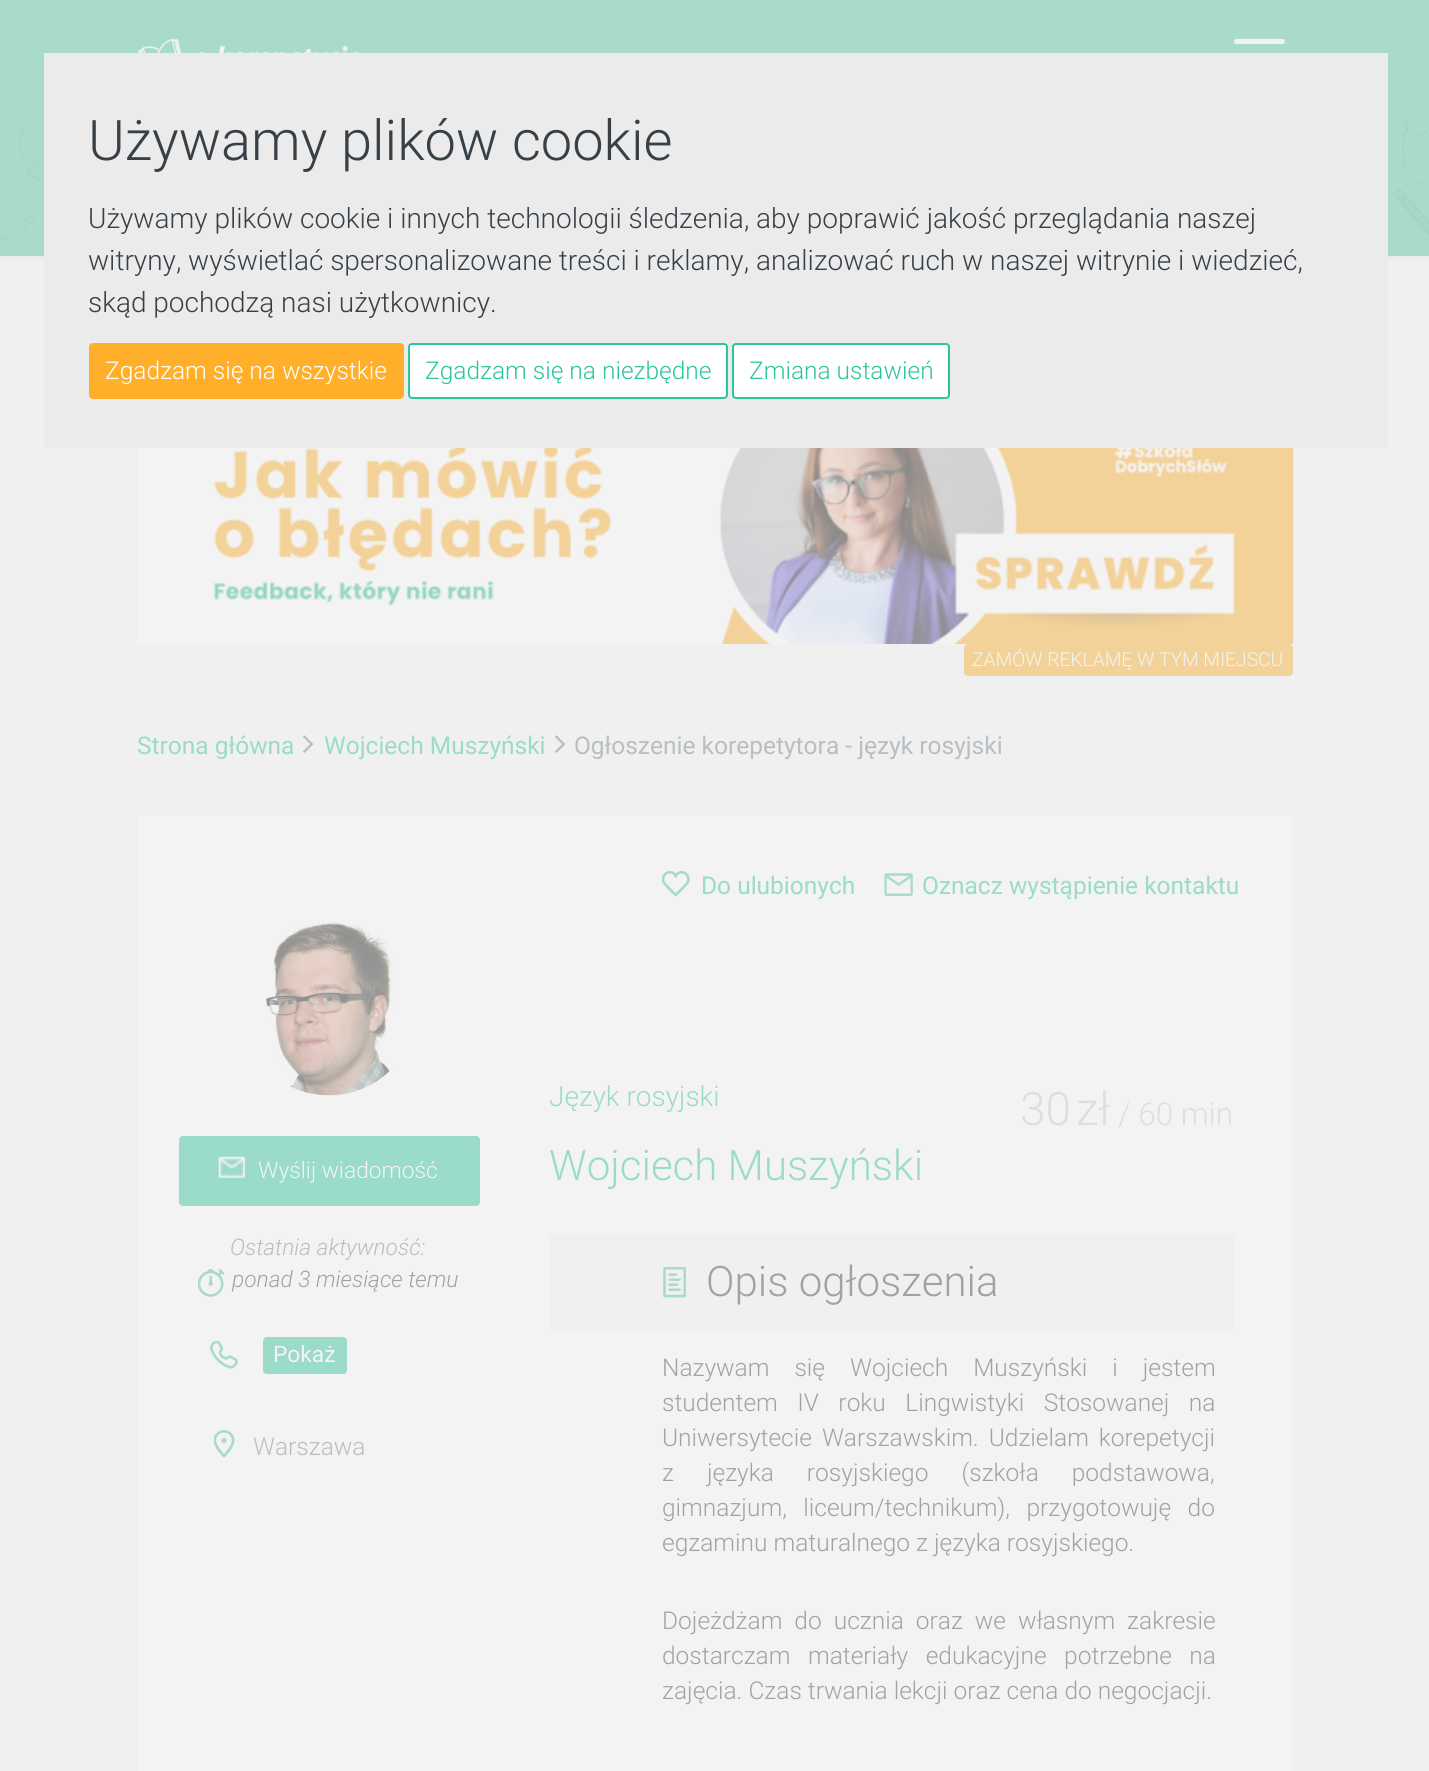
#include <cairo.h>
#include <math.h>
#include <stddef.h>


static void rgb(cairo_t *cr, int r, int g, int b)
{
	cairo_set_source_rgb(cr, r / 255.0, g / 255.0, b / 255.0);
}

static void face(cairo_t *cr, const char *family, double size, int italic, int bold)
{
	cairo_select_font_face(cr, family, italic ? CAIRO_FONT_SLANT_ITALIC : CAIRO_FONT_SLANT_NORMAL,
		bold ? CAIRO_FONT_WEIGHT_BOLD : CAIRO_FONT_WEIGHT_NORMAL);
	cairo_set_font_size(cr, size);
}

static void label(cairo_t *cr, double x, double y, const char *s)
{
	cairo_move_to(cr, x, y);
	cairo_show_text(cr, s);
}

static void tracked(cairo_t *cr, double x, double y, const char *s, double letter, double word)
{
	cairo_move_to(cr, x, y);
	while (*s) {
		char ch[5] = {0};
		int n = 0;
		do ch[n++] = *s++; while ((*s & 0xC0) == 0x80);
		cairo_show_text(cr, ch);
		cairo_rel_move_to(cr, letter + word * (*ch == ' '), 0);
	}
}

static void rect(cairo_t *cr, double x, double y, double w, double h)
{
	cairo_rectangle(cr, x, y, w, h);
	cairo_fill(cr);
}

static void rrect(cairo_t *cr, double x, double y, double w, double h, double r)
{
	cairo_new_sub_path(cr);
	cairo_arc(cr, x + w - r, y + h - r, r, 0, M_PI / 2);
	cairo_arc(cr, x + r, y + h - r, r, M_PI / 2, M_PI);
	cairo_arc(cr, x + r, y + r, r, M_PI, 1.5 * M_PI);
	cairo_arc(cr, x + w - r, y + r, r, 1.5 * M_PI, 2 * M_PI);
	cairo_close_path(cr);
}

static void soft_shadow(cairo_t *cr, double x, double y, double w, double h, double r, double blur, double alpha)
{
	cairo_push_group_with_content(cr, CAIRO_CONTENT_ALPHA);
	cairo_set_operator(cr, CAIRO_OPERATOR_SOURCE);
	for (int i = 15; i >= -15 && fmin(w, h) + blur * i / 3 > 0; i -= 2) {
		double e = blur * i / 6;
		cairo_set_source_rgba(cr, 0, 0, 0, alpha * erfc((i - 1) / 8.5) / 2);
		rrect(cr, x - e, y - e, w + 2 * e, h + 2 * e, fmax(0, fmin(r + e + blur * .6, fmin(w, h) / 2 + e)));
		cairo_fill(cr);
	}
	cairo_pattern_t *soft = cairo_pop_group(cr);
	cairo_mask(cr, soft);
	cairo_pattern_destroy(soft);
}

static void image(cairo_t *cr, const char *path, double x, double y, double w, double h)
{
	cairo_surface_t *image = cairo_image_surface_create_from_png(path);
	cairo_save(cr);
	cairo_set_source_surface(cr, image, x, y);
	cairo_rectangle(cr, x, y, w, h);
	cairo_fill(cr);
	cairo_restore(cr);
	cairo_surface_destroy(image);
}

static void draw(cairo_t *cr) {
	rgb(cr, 240, 240, 241);
	cairo_paint(cr);
	rgb(cr, 227, 227, 227);
	soft_shadow(cr, 0, 0, 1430, 256, 0, 4.5, 1);
	rgb(cr, 168, 219, 201);
	rect(cr, 0, 255, 1429, 1);
	image(cr, "image0.png", 0, 121, 1429, 135);
	rect(cr, 0, 0, 1429, 121);
	image(cr, "image1.png", 138, 39, 221, 14);
	rgb(cr, 243, 243, 243);
	rrect(cr, 1234, 39, 51, 5, 2.5);
	cairo_fill(cr);
	rgb(cr, 235, 235, 235);
	rect(cr, 44, 53, 1344, 395);
	face(cr, "Roboto Light", 56, 0, 0);
	rgb(cr, 56, 64, 71);
	label(cr, 88, 160, "Używamy plików cookie");
	face(cr, "Roboto Light", 28, 0, 0);
	label(cr, 88, 228, "Używamy plików cookie i innych technologii śledzenia, aby poprawić jakość przeglądania naszej");
	label(cr, 88, 270, "witryny, wyświetlać spersonalizowane treści i reklamy, analizować ruch w naszej witrynie i wiedzieć,");
	label(cr, 88, 312, "skąd pochodzą nasi użytkownicy.");
	rgb(cr, 255, 175, 42);
	rrect(cr, 90, 344, 313, 54, 3);
	cairo_fill_preserve(cr);
	cairo_stroke(cr);
	face(cr, "Roboto Light", 24.5, 0, 0);
	rgb(cr, 255, 255, 255);
	label(cr, 105, 379, "Zgadzam się na wszystkie");
	rrect(cr, 409, 344, 318, 54, 3);
	cairo_fill_preserve(cr);
	rgb(cr, 42, 197, 155);
	cairo_stroke(cr);
	label(cr, 425, 379, "Zgadzam się na niezbędne");
	rgb(cr, 255, 255, 255);
	rrect(cr, 733, 344, 216, 54, 3);
	cairo_fill_preserve(cr);
	rgb(cr, 42, 197, 155);
	cairo_stroke(cr);
	label(cr, 749, 379, "Zmiana ustawień");
	image(cr, "image2.png", 138, 448, 1156, 196);
	rgb(cr, 243, 210, 154);
	rrect(cr, 964, 644, 329, 32, 4);
	cairo_fill(cr);
	face(cr, "Roboto Light", 19.25, 0, 0);
	rgb(cr, 243, 243, 243);
	label(cr, 972, 666, "ZAMÓW REKLAMĘ W TYM MIEJSCU");
	face(cr, "Roboto", 24.5, 0, 0);
	rgb(cr, 154, 219, 201);
	label(cr, 137, 754, "Strona główna");
	image(cr, "image3.png", 303, 735, 11, 18);
	label(cr, 324, 754, "Wojciech Muszyński");
	image(cr, "image3.png", 555, 735, 11, 18);
	rgb(cr, 184, 190, 193);
	label(cr, 574, 754, "Ogłoszenie korepetytora - język rosyjski");
	rgb(cr, 243, 243, 243);
	rect(cr, 138, 816, 1155, 955);
	image(cr, "image4.png", 662, 870, 28, 27);
	rgb(cr, 154, 219, 201);
	label(cr, 701, 894, "Do ulubionych");
	image(cr, "image5.png", 884, 873, 29, 23);
	label(cr, 922, 894, "Oznacz wystąpienie kontaktu");
	image(cr, "image6.png", 265, 921, 129, 175);
	rrect(cr, 180, 1137, 299, 68, 3);
	cairo_fill_preserve(cr);
	cairo_stroke(cr);
	image(cr, "image7.png", 218, 1156, 27, 22);
	face(cr, "Roboto Light", 22.75, 0, 0);
	rgb(cr, 243, 243, 243);
	label(cr, 258, 1178, "Wyślij wiadomość");
	face(cr, "Roboto Light", 22.75, 1, 0);
	rgb(cr, 184, 190, 193);
	label(cr, 230, 1255, "Ostatnia aktywność:");
	image(cr, "image8.png", 198, 1269, 27, 28);
	rgb(cr, 160, 163, 166);
	label(cr, 232, 1287, "ponad 3 miesiące temu");
	image(cr, "image9.png", 210, 1341, 28, 28);
	rgb(cr, 154, 219, 201);
	rrect(cr, 264, 1338, 82, 35, 3);
	cairo_fill_preserve(cr);
	cairo_stroke(cr);
	face(cr, "Roboto", 22.75, 0, 0);
	rgb(cr, 243, 243, 243);
	label(cr, 273, 1362, "Pokaż");
	image(cr, "image10.png", 214, 1430, 21, 28);
	face(cr, "Roboto Light", 24.5, 0, 0);
	rgb(cr, 184, 190, 193);
	label(cr, 253, 1455, "Warszawa");
	cairo_save(cr);
	cairo_rectangle(cr, 550, 1078, 169, 40);
	cairo_clip(cr);
	face(cr, "Roboto Light", 28, 0, 0);
	rgb(cr, 154, 219, 201);
	label(cr, 549, 1106, "Język rosyjski");
	cairo_restore(cr);
	face(cr, "Roboto Light", 46, 0, 0);
	rgb(cr, 221, 222, 222);
	label(cr, 1020, 1125, "30");
	label(cr, 1076, 1125, "zł");
	face(cr, "Roboto Light", 31.5, 0, 0);
	label(cr, 1118, 1125, "/ 60 min");
	face(cr, "Roboto Light", 42, 0, 0);
	rgb(cr, 154, 219, 201);
	label(cr, 549, 1180, "Wojciech Muszyński");
	rgb(cr, 240, 240, 241);
	rect(cr, 550, 1234, 684, 98);
	image(cr, "image11.png", 663, 1267, 23, 31);
	rgb(cr, 160, 163, 166);
	label(cr, 706, 1296, "Opis ogłoszenia");
	face(cr, "Roboto Light", 24.5, 0, 0);
	tracked(cr, 662, 1376, "Nazywam się Wojciech Muszyński i jestem", 0, 19);
	tracked(cr, 662, 1411, "studentem IV roku Lingwistyki Stosowanej na", 0, 13.5);
	tracked(cr, 662, 1446, "Uniwersytecie Warszawskim. Udzielam korepetycji", 0, 4);
	tracked(cr, 662, 1481, "z języka rosyjskiego (szkoła podstawowa,", 0, 27);
	tracked(cr, 662, 1516, "gimnazjum, liceum/technikum), przygotowuję do", 0, 10.5);
	label(cr, 662, 1551, "egzaminu maturalnego z języka rosyjskiego.");
	tracked(cr, 662, 1629, "Dojeżdżam do ucznia oraz we własnym zakresie", 0, 6);
	tracked(cr, 662, 1664, "dostarczam materiały edukacyjne potrzebne na", 0, 11.5);
	label(cr, 662, 1699, "zajęcia. Czas trwania lekcji oraz cena do negocjacji.");
}

int main(void) {
	cairo_surface_t *surface = cairo_image_surface_create(CAIRO_FORMAT_RGB24, 1429, 1771);
	cairo_t *cr = cairo_create(surface);
	cairo_font_options_t *options = cairo_font_options_create();
	cairo_font_options_set_hint_metrics(options, CAIRO_HINT_METRICS_OFF);
	cairo_font_options_set_hint_style(options, CAIRO_HINT_STYLE_NONE);
	cairo_set_font_options(cr, options);
	cairo_set_miter_limit(cr, 4);
	draw(cr);
	cairo_surface_write_to_png(surface, "render.png");
	cairo_font_options_destroy(options);
	cairo_destroy(cr);
	cairo_surface_destroy(surface);
	return 0;
}
